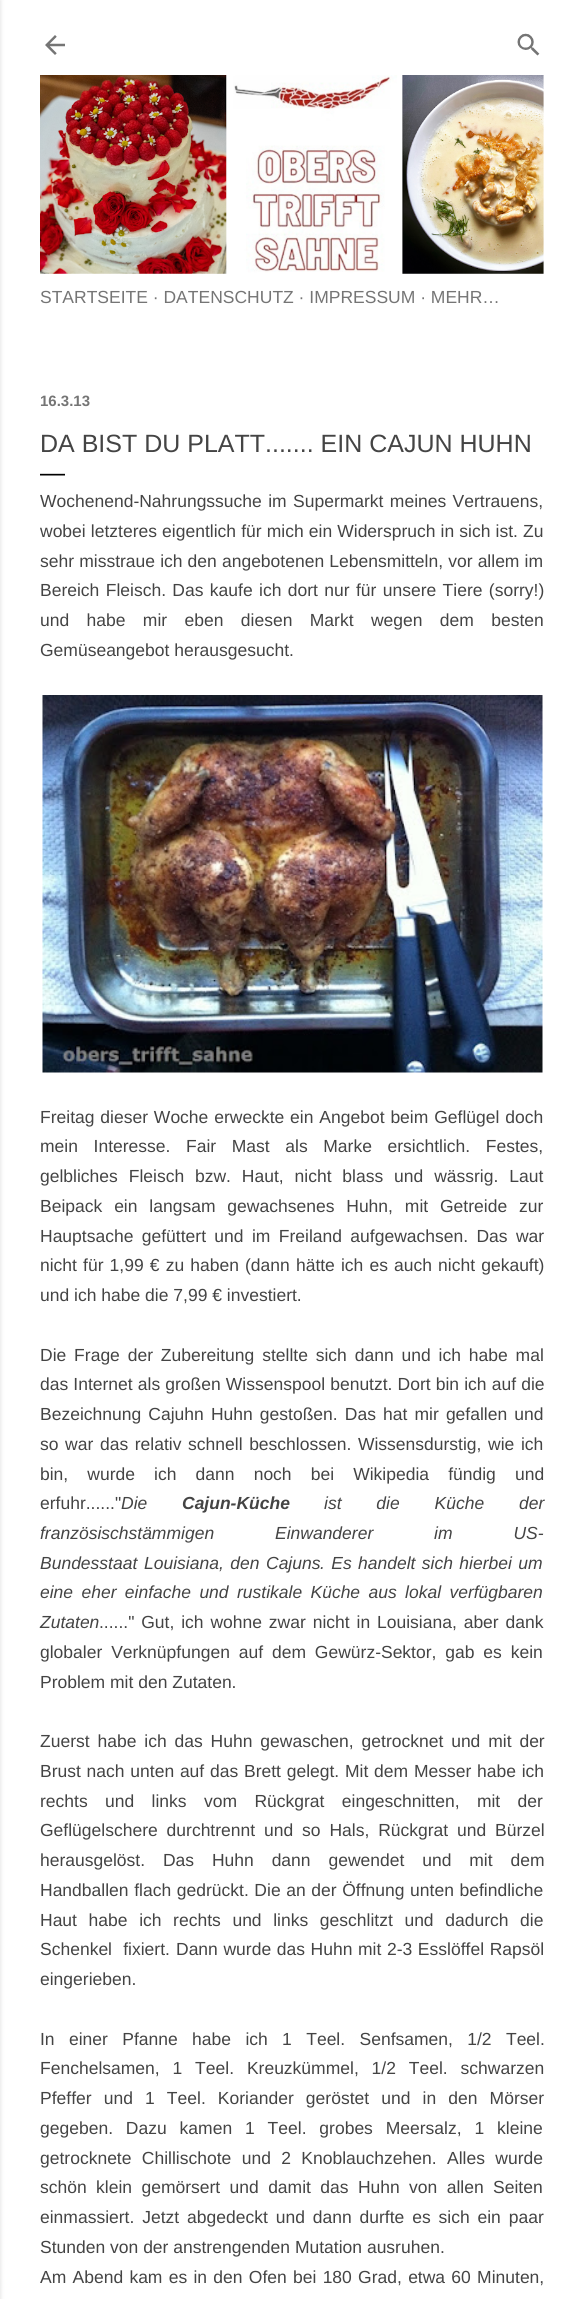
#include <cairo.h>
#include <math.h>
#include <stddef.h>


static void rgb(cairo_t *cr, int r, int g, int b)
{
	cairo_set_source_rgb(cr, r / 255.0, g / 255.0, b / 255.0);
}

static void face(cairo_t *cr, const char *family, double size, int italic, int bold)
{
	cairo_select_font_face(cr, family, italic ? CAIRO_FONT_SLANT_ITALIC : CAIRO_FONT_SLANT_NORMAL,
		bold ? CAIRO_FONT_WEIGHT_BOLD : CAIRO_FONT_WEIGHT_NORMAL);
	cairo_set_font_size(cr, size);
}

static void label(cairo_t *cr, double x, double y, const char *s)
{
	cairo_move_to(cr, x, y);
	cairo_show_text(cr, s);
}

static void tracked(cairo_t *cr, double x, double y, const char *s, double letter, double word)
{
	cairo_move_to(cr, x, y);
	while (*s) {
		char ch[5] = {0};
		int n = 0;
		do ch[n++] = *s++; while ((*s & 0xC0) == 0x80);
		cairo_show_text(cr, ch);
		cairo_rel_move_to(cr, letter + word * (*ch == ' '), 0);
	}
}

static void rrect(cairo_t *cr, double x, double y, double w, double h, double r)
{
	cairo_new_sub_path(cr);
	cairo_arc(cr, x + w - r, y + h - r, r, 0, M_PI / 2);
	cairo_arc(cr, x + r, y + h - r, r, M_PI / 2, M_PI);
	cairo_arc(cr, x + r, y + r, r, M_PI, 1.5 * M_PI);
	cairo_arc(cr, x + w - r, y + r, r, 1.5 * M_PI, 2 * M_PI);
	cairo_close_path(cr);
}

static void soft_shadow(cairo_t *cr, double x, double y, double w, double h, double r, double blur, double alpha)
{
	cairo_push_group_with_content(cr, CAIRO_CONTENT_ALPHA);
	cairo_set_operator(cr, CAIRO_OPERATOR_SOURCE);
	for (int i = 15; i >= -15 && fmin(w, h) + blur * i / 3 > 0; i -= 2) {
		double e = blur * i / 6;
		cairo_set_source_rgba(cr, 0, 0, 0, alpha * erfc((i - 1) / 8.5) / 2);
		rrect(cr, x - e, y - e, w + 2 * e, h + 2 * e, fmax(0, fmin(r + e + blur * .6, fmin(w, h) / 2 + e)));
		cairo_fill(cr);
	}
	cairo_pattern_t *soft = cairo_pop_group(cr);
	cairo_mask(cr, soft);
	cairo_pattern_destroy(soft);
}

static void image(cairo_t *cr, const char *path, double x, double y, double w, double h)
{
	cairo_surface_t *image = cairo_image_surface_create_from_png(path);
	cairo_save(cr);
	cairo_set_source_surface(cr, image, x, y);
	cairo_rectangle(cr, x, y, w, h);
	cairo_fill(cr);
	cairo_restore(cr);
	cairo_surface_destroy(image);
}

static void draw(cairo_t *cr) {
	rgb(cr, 255, 255, 255);
	cairo_paint(cr);
	rgb(cr, 0, 0, 0);
	soft_shadow(cr, -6, 0, 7, 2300, 0, 2, 0.1);
	image(cr, "image0.png", 45, 35, 20, 20);
	image(cr, "image1.png", 517, 33, 23, 23);
	image(cr, "image2.png", 40, 75, 504, 199);
	face(cr, "Liberation Sans", 17.5, 0, 0);
	rgb(cr, 117, 117, 117);
	label(cr, 40, 303, "STARTSEITE · DATENSCHUTZ · IMPRESSUM · MEHR…");
	face(cr, "Liberation Sans", 15, 0, 1);
	label(cr, 40, 406, "16.3.13");
	face(cr, "Liberation Sans", 25, 0, 0);
	rgb(cr, 68, 68, 68);
	label(cr, 40, 452, "DA BIST DU PLATT....... EIN CAJUN HUHN");
	rgb(cr, 0, 0, 0);
	label(cr, 40, 481, "—");
	face(cr, "Liberation Sans", 17.5, 0, 0);
	rgb(cr, 68, 68, 68);
	tracked(cr, 40, 507, "Wochenend-Nahrungssuche im Supermarkt meines Vertrauens,", 0, 1.5);
	tracked(cr, 40, 537, "wobei letzteres eigentlich für mich ein Widerspruch in sich ist. Zu", 0, 0.25);
	tracked(cr, 40, 567, "sehr misstraue ich den angebotenen Lebensmitteln, vor allem im", 0, 0.25);
	tracked(cr, 40, 596, "Bereich Fleisch. Das kaufe ich dort nur für unsere Tiere (sorry!)", 0, 1.5);
	tracked(cr, 40, 626, "und habe mir eben diesen Markt wegen dem besten", 0, 12.5);
	label(cr, 40, 656, "Gemüseangebot herausgesucht.");
	image(cr, "image3.png", 42, 695, 501, 378);
	tracked(cr, 40, 1123, "Freitag dieser Woche erweckte ein Angebot beim Geflügel doch", 0, 1);
	tracked(cr, 40, 1152, "mein Interesse. Fair Mast als Marke ersichtlich. Festes,", 0, 10.75);
	tracked(cr, 40, 1182, "gelbliches Fleisch bzw. Haut, nicht blass und wässrig. Laut", 0, 6);
	tracked(cr, 40, 1212, "Beipack ein langsam gewachsenes Huhn, mit Getreide zur", 0, 7);
	tracked(cr, 40, 1242, "Hauptsache gefüttert und im Freiland aufgewachsen. Das war", 0, 3.5);
	tracked(cr, 40, 1271, "nicht für 1,99 € zu haben (dann hätte ich es auch nicht gekauft)", 0, 1.25);
	label(cr, 40, 1301, "und ich habe die 7,99 € investiert.");
	tracked(cr, 40, 1361, "Die Frage der Zubereitung stellte sich dann und ich habe mal", 0, 3);
	tracked(cr, 40, 1390, "das Internet als großen Wissenspool benutzt. Dort bin ich auf die", 0, 0.25);
	tracked(cr, 40, 1420, "Bezeichnung Cajuhn Huhn gestoßen. Das hat mir gefallen und", 0, 2.25);
	tracked(cr, 40, 1450, "so war das relativ schnell beschlossen. Wissensdurstig, wie ich", 0, 1.75);
	tracked(cr, 40, 1480, "bin, wurde ich dann noch bei Wikipedia fündig und", 0, 14.25);
	label(cr, 40, 1509, "erfuhr......\"");
	face(cr, "Liberation Sans", 17.5, 1, 0);
	label(cr, 121, 1509, "Die");
	face(cr, "Liberation Sans", 17.5, 1, 1);
	label(cr, 182, 1509, "Cajun-Küche");
	face(cr, "Liberation Sans", 17.5, 1, 0);
	tracked(cr, 324, 1509, "ist die Küche der", 0, 30);
	tracked(cr, 40, 1539, "französischstämmigen Einwanderer im US-", 0, 56);
	label(cr, 40, 1569, "Bundesstaat");
	label(cr, 144, 1569, "Louisiana");
	tracked(cr, 219, 1569, ", den", 0, 1.5);
	label(cr, 266, 1569, "Cajuns");
	tracked(cr, 320, 1569, ". Es handelt sich hierbei um", 0, 1.5);
	tracked(cr, 40, 1598, "eine eher einfache und rustikale Küche aus lokal verfügbaren", 0, 3.5);
	label(cr, 40, 1628, "Zutaten");
	face(cr, "Liberation Sans", 17.5, 0, 0);
	tracked(cr, 99, 1628, "......\" Gut, ich wohne zwar nicht in Louisiana, aber dank", 0, 2);
	tracked(cr, 40, 1658, "globaler Verknüpfungen auf dem Gewürz-Sektor, gab es kein", 0, 4);
	label(cr, 40, 1688, "Problem mit den Zutaten.");
	tracked(cr, 40, 1747, "Zuerst habe ich das Huhn gewaschen, getrocknet und mit der", 0, 3);
	tracked(cr, 40, 1777, "Brust nach unten auf das Brett gelegt. Mit dem Messer habe ich", 0, 0.9);
	tracked(cr, 40, 1807, "rechts und links vom Rückgrat eingeschnitten, mit der", 0, 12.5);
	tracked(cr, 40, 1836, "Geflügelschere durchtrennt und so Hals, Rückgrat und Bürzel", 0, 4);
	tracked(cr, 40, 1866, "herausgelöst. Das Huhn dann gewendet und mit dem", 0, 13);
	tracked(cr, 40, 1896, "Handballen flach gedrückt. Die an der Öffnung unten befindliche", 0, 0.75);
	tracked(cr, 40, 1926, "Haut habe ich rechts und links geschlitzt und dadurch die", 0, 6.75);
	tracked(cr, 40, 1955, "Schenkel  fixiert.", 0, 0.75);
	tracked(cr, 176, 1955, "Dann wurde das Huhn mit 2-3 Esslöffel Rapsöl", 0, 0.75);
	label(cr, 40, 1985, "eingerieben.");
	tracked(cr, 40, 2045, "In einer Pfanne habe ich 1 Teel. Senfsamen, 1/2 Teel.", 0, 9.5);
	tracked(cr, 40, 2074, "Fenchelsamen, 1 Teel. Kreuzkümmel, 1/2 Teel. schwarzen", 0, 8);
	tracked(cr, 40, 2104, "Pfeffer und 1 Teel. Koriander geröstet und in den Mörser", 0, 7.25);
	tracked(cr, 40, 2134, "gegeben. Dazu kamen 1 Teel. grobes Meersalz, 1 kleine", 0, 8);
	tracked(cr, 40, 2164, "getrocknete Chillischote und 2 Knoblauchzehen. Alles wurde", 0, 5.5);
	tracked(cr, 40, 2193, "schön klein gemörsert und damit das Huhn von allen Seiten", 0, 4.5);
	tracked(cr, 40, 2223, "einmassiert. Jetzt abgedeckt und dann durfte es sich ein paar", 0, 3);
	label(cr, 40, 2253, "Stunden von der anstrengenden Mutation ausruhen.");
	tracked(cr, 40, 2283, "Am Abend kam es in den Ofen bei 180 Grad, etwa 60 Minuten,", 0, 1.4);
}

int main(void) {
	cairo_surface_t *surface = cairo_image_surface_create(CAIRO_FORMAT_RGB24, 583, 2299);
	cairo_t *cr = cairo_create(surface);
	cairo_font_options_t *options = cairo_font_options_create();
	cairo_font_options_set_hint_metrics(options, CAIRO_HINT_METRICS_OFF);
	cairo_font_options_set_hint_style(options, CAIRO_HINT_STYLE_NONE);
	cairo_set_font_options(cr, options);
	cairo_set_miter_limit(cr, 4);
	draw(cr);
	cairo_surface_write_to_png(surface, "render.png");
	cairo_font_options_destroy(options);
	cairo_destroy(cr);
	cairo_surface_destroy(surface);
	return 0;
}
